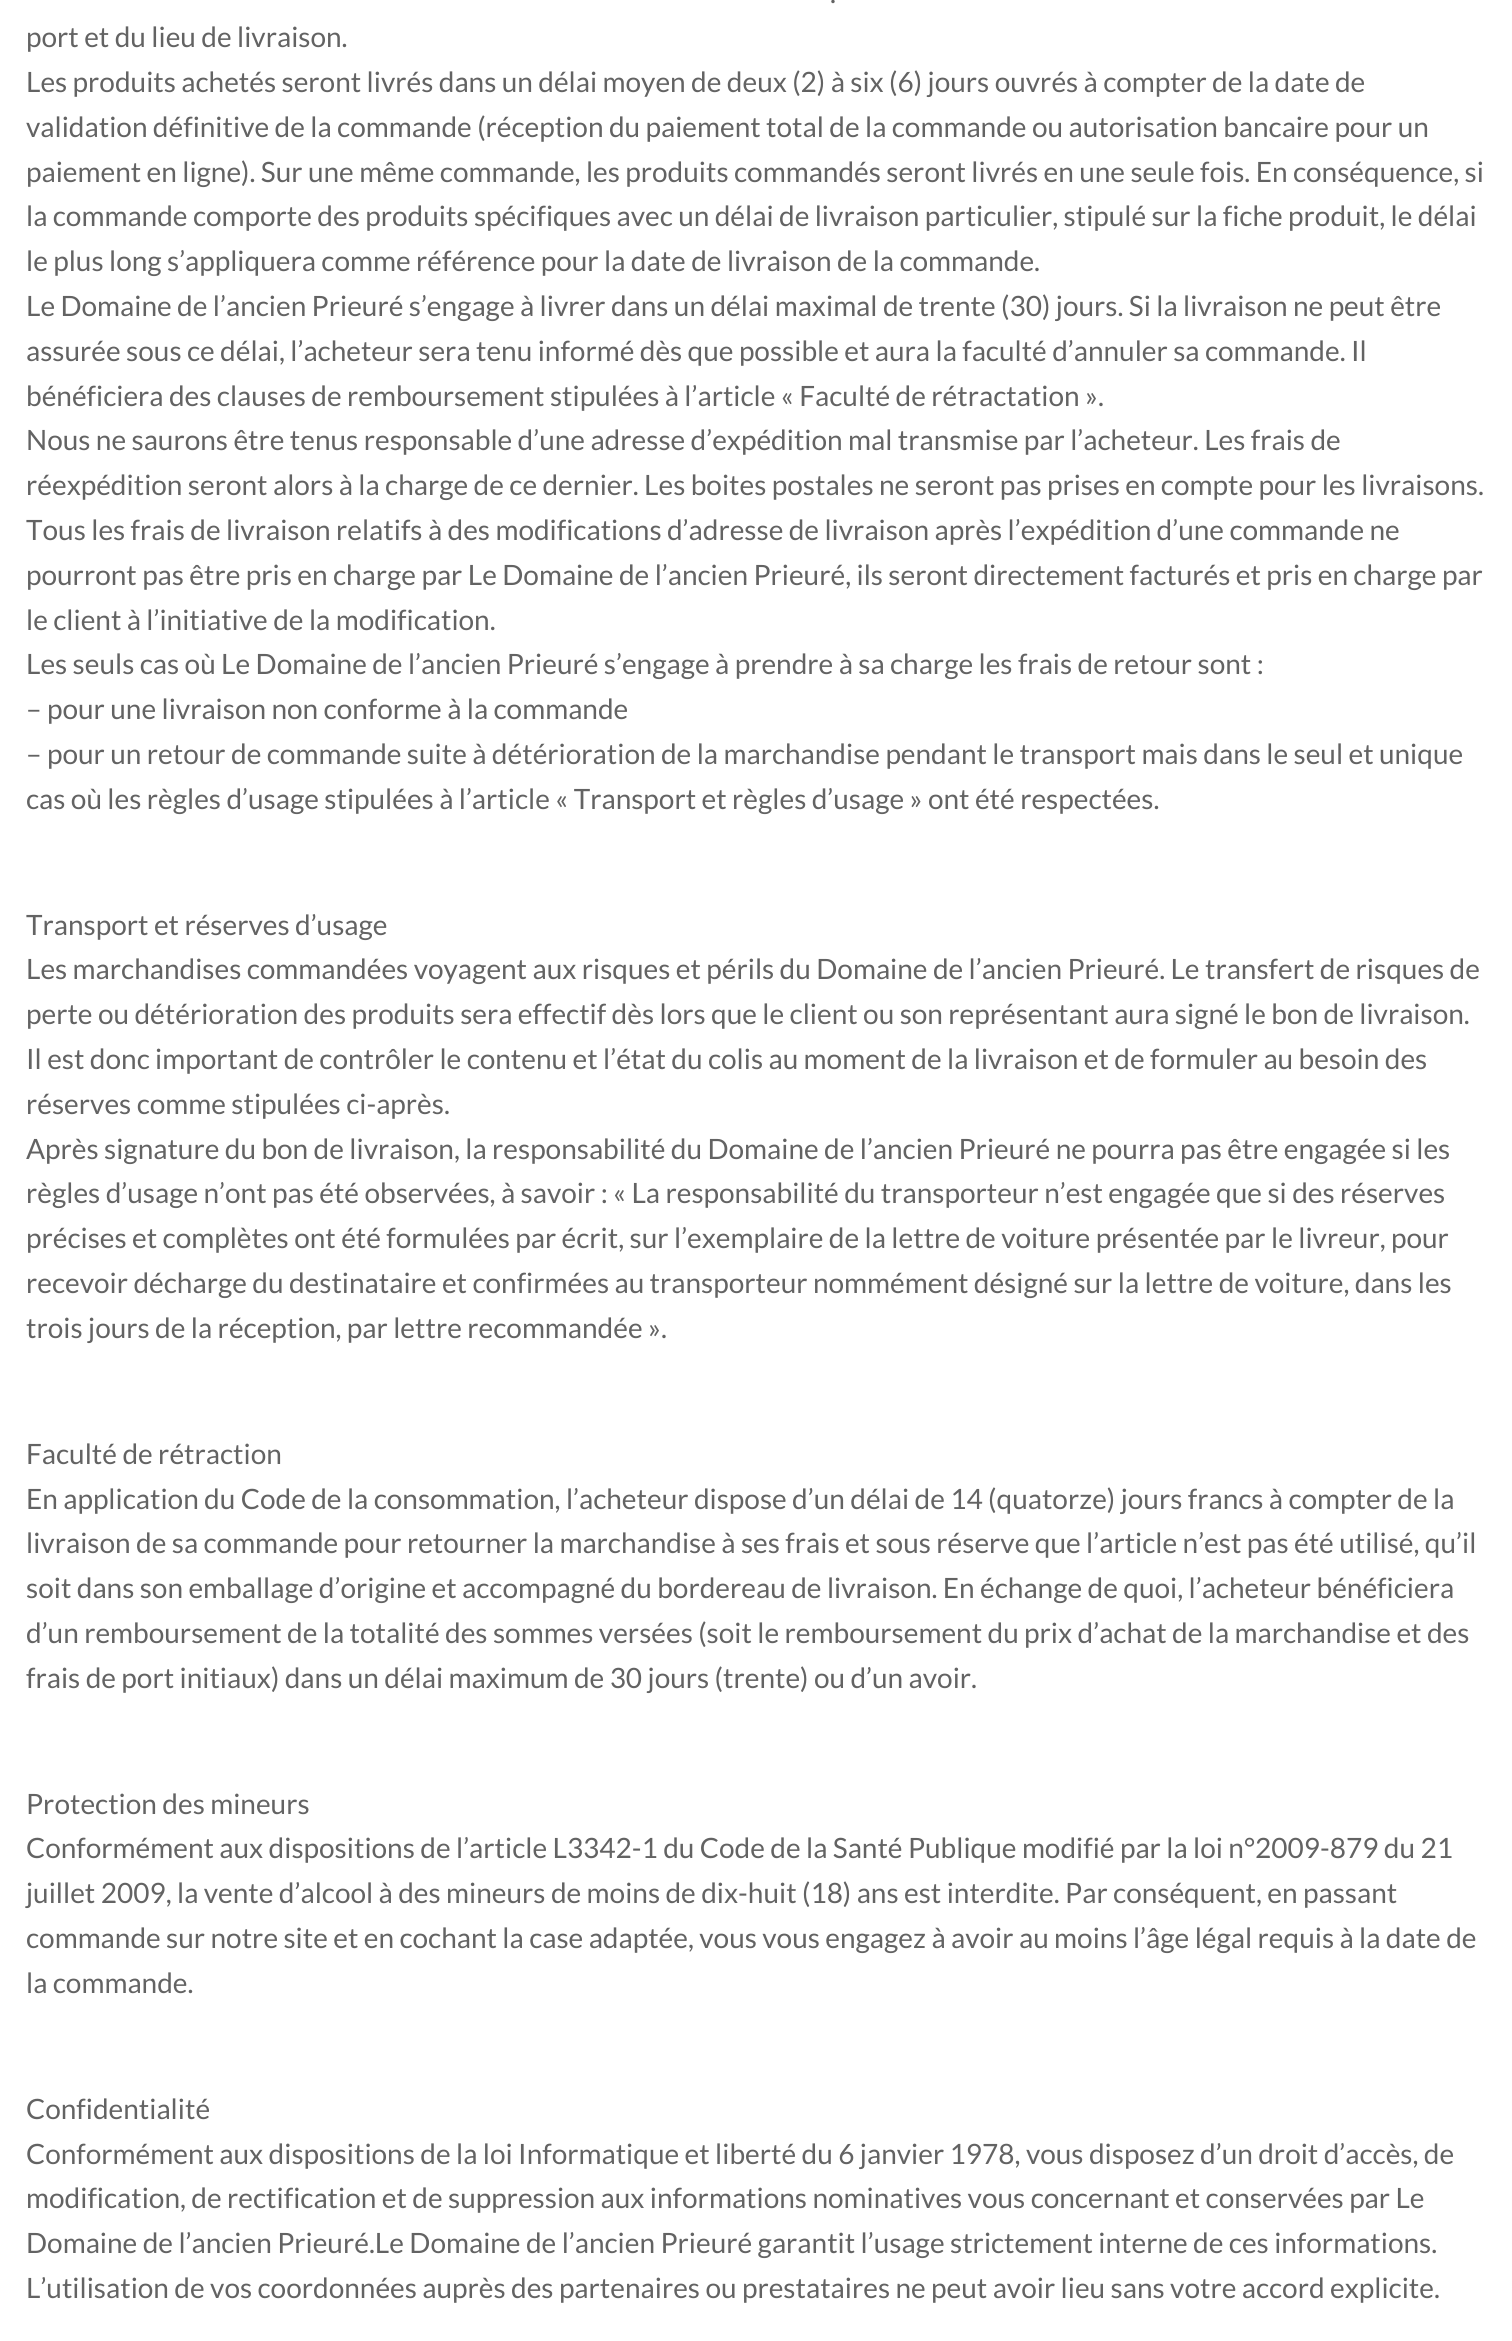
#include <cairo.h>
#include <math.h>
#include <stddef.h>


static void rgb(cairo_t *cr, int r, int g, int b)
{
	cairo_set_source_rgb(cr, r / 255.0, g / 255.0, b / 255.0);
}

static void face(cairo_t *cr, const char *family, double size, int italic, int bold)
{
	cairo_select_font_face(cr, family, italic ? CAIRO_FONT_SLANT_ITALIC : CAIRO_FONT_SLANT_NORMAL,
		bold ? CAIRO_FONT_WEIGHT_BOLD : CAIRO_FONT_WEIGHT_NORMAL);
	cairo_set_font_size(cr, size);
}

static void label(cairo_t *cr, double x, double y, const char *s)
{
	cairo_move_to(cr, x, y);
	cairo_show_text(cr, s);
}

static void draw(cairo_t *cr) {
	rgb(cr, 255, 255, 255);
	cairo_paint(cr);
	face(cr, "Lato", 28, 0, 0);
	rgb(cr, 99, 99, 99);
	label(cr, 830, 3, ".");
	label(cr, 26, 47, "port et du lieu de livraison.");
	label(cr, 26, 92, "Les produits achetés seront livrés dans un délai moyen de deux (2) à six (6) jours ouvrés à compter de la date de");
	label(cr, 26, 137, "validation définitive de la commande (réception du paiement total de la commande ou autorisation bancaire pour un");
	label(cr, 26, 182, "paiement en ligne). Sur une même commande, les produits commandés seront livrés en une seule fois. En conséquence, si");
	label(cr, 26, 226, "la commande comporte des produits spécifiques avec un délai de livraison particulier, stipulé sur la fiche produit, le délai");
	label(cr, 26, 271, "le plus long s’appliquera comme référence pour la date de livraison de la commande.");
	label(cr, 26, 316, "Le Domaine de l’ancien Prieuré s’engage à livrer dans un délai maximal de trente (30) jours. Si la livraison ne peut être");
	label(cr, 26, 361, "assurée sous ce délai, l’acheteur sera tenu informé dès que possible et aura la faculté d’annuler sa commande. Il");
	label(cr, 26, 406, "bénéficiera des clauses de remboursement stipulées à l’article « Faculté de rétractation ».");
	label(cr, 26, 450, "Nous ne saurons être tenus responsable d’une adresse d’expédition mal transmise par l’acheteur. Les frais de");
	label(cr, 26, 495, "réexpédition seront alors à la charge de ce dernier. Les boites postales ne seront pas prises en compte pour les livraisons.");
	label(cr, 26, 540, "Tous les frais de livraison relatifs à des modifications d’adresse de livraison après l’expédition d’une commande ne");
	label(cr, 26, 585, "pourront pas être pris en charge par Le Domaine de l’ancien Prieuré, ils seront directement facturés et pris en charge par");
	label(cr, 26, 630, "le client à l’initiative de la modification.");
	label(cr, 26, 674, "Les seuls cas où Le Domaine de l’ancien Prieuré s’engage à prendre à sa charge les frais de retour sont :");
	label(cr, 26, 719, "– pour une livraison non conforme à la commande");
	label(cr, 26, 764, "– pour un retour de commande suite à détérioration de la marchandise pendant le transport mais dans le seul et unique");
	label(cr, 26, 809, "cas où les règles d’usage stipulées à l’article « Transport et règles d’usage » ont été respectées.");
	label(cr, 26, 935, "Transport et réserves d’usage");
	label(cr, 26, 979, "Les marchandises commandées voyagent aux risques et périls du Domaine de l’ancien Prieuré. Le transfert de risques de");
	label(cr, 26, 1024, "perte ou détérioration des produits sera effectif dès lors que le client ou son représentant aura signé le bon de livraison.");
	label(cr, 26, 1069, "Il est donc important de contrôler le contenu et l’état du colis au moment de la livraison et de formuler au besoin des");
	label(cr, 26, 1114, "réserves comme stipulées ci-après.");
	label(cr, 26, 1159, "Après signature du bon de livraison, la responsabilité du Domaine de l’ancien Prieuré ne pourra pas être engagée si les");
	label(cr, 26, 1203, "règles d’usage n’ont pas été observées, à savoir : « La responsabilité du transporteur n’est engagée que si des réserves");
	label(cr, 26, 1248, "précises et complètes ont été formulées par écrit, sur l’exemplaire de la lettre de voiture présentée par le livreur, pour");
	label(cr, 26, 1293, "recevoir décharge du destinataire et confirmées au transporteur nommément désigné sur la lettre de voiture, dans les");
	label(cr, 26, 1338, "trois jours de la réception, par lettre recommandée ».");
	label(cr, 26, 1464, "Faculté de rétraction");
	label(cr, 26, 1509, "En application du Code de la consommation, l’acheteur dispose d’un délai de 14 (quatorze) jours francs à compter de la");
	label(cr, 26, 1553, "livraison de sa commande pour retourner la marchandise à ses frais et sous réserve que l’article n’est pas été utilisé, qu’il");
	label(cr, 26, 1598, "soit dans son emballage d’origine et accompagné du bordereau de livraison. En échange de quoi, l’acheteur bénéficiera");
	label(cr, 26, 1643, "d’un remboursement de la totalité des sommes versées (soit le remboursement du prix d’achat de la marchandise et des");
	label(cr, 26, 1688, "frais de port initiaux) dans un délai maximum de 30 jours (trente) ou d’un avoir.");
	label(cr, 26, 1814, "Protection des mineurs");
	label(cr, 26, 1858, "Conformément aux dispositions de l’article L3342-1 du Code de la Santé Publique modifié par la loi n°2009-879 du 21");
	label(cr, 26, 1903, "juillet 2009, la vente d’alcool à des mineurs de moins de dix-huit (18) ans est interdite. Par conséquent, en passant");
	label(cr, 26, 1948, "commande sur notre site et en cochant la case adaptée, vous vous engagez à avoir au moins l’âge légal requis à la date de");
	label(cr, 26, 1993, "la commande.");
	label(cr, 26, 2119, "Confidentialité");
	label(cr, 26, 2164, "Conformément aux dispositions de la loi Informatique et liberté du 6 janvier 1978, vous disposez d’un droit d’accès, de");
	label(cr, 26, 2208, "modification, de rectification et de suppression aux informations nominatives vous concernant et conservées par Le");
	label(cr, 26, 2253, "Domaine de l’ancien Prieuré.Le Domaine de l’ancien Prieuré garantit l’usage strictement interne de ces informations.");
	label(cr, 26, 2298, "L’utilisation de vos coordonnées auprès des partenaires ou prestataires ne peut avoir lieu sans votre accord explicite.");
}

int main(void) {
	cairo_surface_t *surface = cairo_image_surface_create(CAIRO_FORMAT_RGB24, 1512, 2341);
	cairo_t *cr = cairo_create(surface);
	cairo_font_options_t *options = cairo_font_options_create();
	cairo_font_options_set_hint_metrics(options, CAIRO_HINT_METRICS_OFF);
	cairo_font_options_set_hint_style(options, CAIRO_HINT_STYLE_NONE);
	cairo_set_font_options(cr, options);
	cairo_set_miter_limit(cr, 4);
	draw(cr);
	cairo_surface_write_to_png(surface, "render.png");
	cairo_font_options_destroy(options);
	cairo_destroy(cr);
	cairo_surface_destroy(surface);
	return 0;
}
